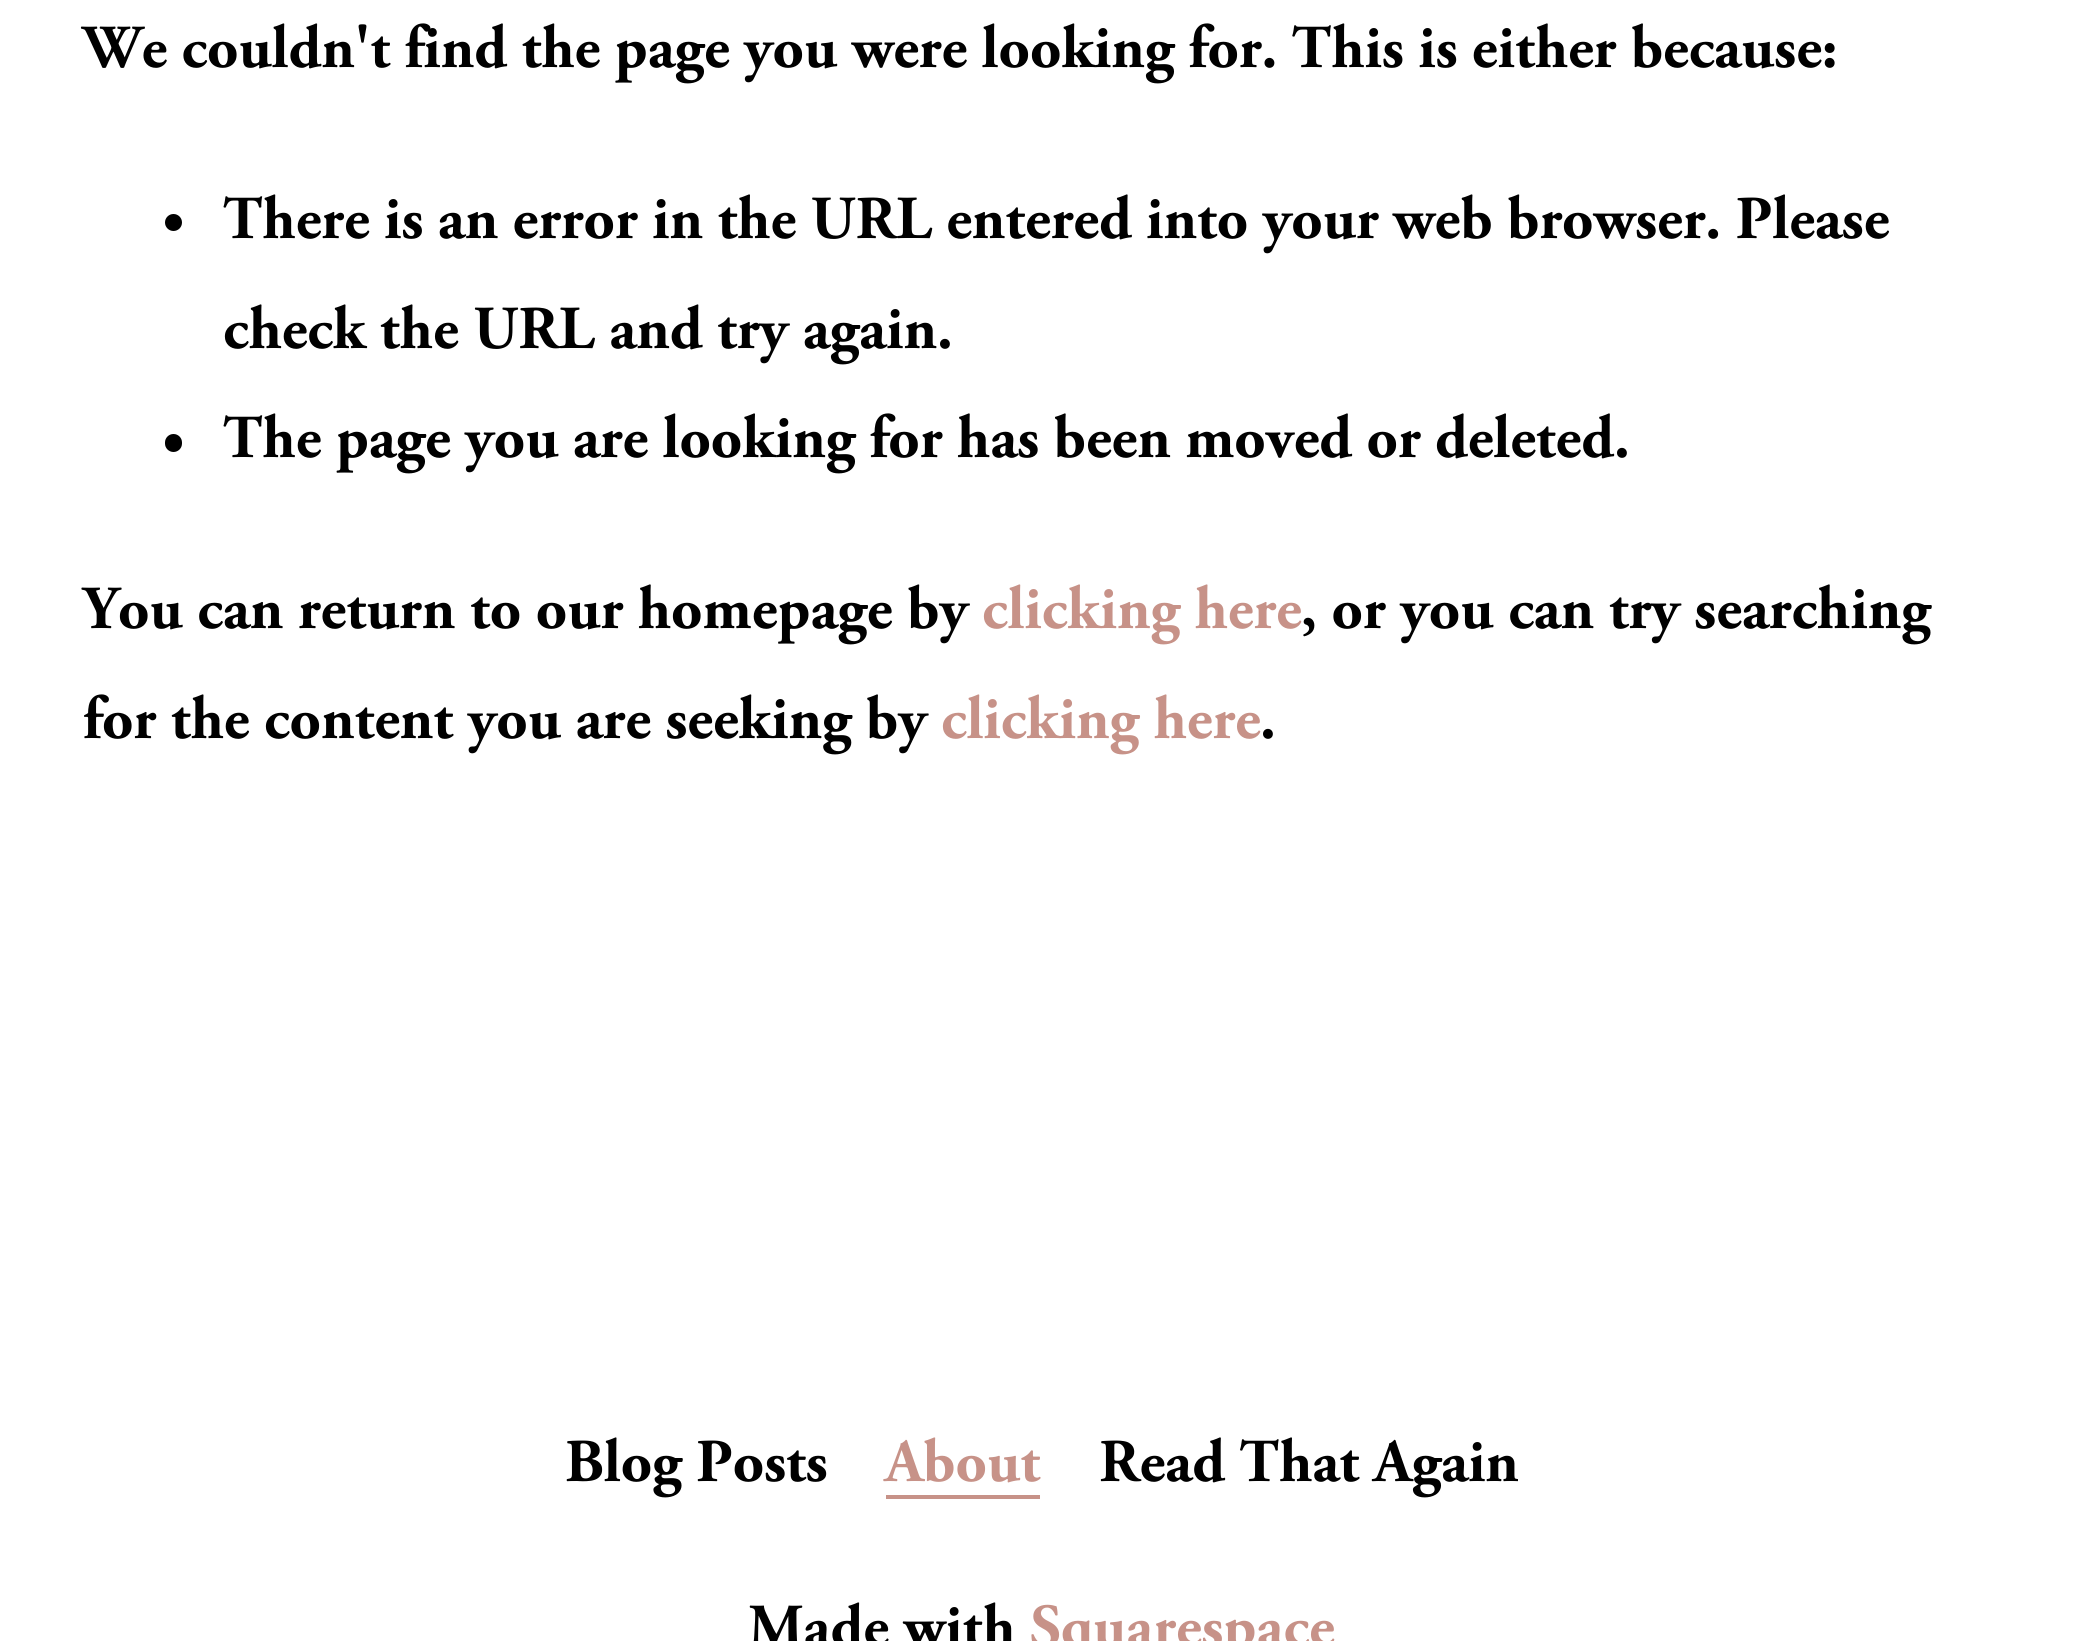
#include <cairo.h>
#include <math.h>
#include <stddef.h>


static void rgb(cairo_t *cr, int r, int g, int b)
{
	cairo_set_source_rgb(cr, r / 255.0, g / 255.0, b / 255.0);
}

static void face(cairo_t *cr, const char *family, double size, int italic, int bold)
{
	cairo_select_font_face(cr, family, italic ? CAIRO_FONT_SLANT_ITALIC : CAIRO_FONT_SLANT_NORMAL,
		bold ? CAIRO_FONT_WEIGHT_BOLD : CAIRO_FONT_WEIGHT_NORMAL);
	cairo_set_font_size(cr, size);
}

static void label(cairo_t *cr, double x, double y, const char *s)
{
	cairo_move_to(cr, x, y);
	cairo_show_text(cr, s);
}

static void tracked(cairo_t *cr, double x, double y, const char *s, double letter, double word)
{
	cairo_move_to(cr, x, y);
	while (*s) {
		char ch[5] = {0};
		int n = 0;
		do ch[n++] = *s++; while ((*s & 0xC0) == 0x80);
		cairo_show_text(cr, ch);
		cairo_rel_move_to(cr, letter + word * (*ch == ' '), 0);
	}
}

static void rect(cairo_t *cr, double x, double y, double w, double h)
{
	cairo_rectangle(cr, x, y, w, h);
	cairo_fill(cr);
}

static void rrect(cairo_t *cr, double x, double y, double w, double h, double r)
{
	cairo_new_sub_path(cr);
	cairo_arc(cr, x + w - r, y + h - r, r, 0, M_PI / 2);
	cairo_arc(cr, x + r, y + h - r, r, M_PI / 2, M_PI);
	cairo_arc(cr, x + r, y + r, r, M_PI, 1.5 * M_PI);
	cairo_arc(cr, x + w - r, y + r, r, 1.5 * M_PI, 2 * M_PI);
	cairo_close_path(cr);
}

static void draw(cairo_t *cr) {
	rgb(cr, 255, 255, 255);
	cairo_paint(cr);
	face(cr, "Adobe Garamond", 61, 0, 1);
	rgb(cr, 0, 0, 0);
	tracked(cr, 83, 67, "We couldn't find the page you were looking for. This is either because:", 0, -0.25);
	cairo_new_path(cr);
	cairo_arc(cr, 173.5, 222.5, 8.5, 0, 2 * M_PI);
	cairo_fill(cr);
	tracked(cr, 223, 238, "There is an error in the URL entered into your web browser. Please", 0, -0.25);
	label(cr, 223, 348, "check the URL and try again.");
	rrect(cr, 165, 434, 17, 18, 8.5);
	cairo_fill(cr);
	tracked(cr, 223, 457, "The page you are looking for has been moved or deleted.", 0, -0.25);
	label(cr, 83, 628, "You can return to our homepage by");
	rgb(cr, 199, 146, 136);
	label(cr, 982, 628, "clicking here");
	rgb(cr, 0, 0, 0);
	label(cr, 1301, 628, ", or you can try searching");
	label(cr, 83, 738, "for the content you are seeking by");
	rgb(cr, 199, 146, 136);
	label(cr, 941, 738, "clicking here");
	rgb(cr, 0, 0, 0);
	label(cr, 1260, 738, ".");
	label(cr, 565, 1481, "Blog Posts");
	rgb(cr, 199, 146, 136);
	label(cr, 885, 1481, "About");
	rect(cr, 886, 1495, 154, 4);
	rgb(cr, 0, 0, 0);
	label(cr, 1099, 1481, "Read That Again");
	label(cr, 748, 1646, "Made with");
	rgb(cr, 199, 146, 136);
	label(cr, 1030, 1646, "Squarespace");
}

int main(void) {
	cairo_surface_t *surface = cairo_image_surface_create(CAIRO_FORMAT_RGB24, 2081, 1641);
	cairo_t *cr = cairo_create(surface);
	cairo_font_options_t *options = cairo_font_options_create();
	cairo_font_options_set_hint_metrics(options, CAIRO_HINT_METRICS_OFF);
	cairo_font_options_set_hint_style(options, CAIRO_HINT_STYLE_NONE);
	cairo_set_font_options(cr, options);
	cairo_set_miter_limit(cr, 4);
	draw(cr);
	cairo_surface_write_to_png(surface, "render.png");
	cairo_font_options_destroy(options);
	cairo_destroy(cr);
	cairo_surface_destroy(surface);
	return 0;
}
